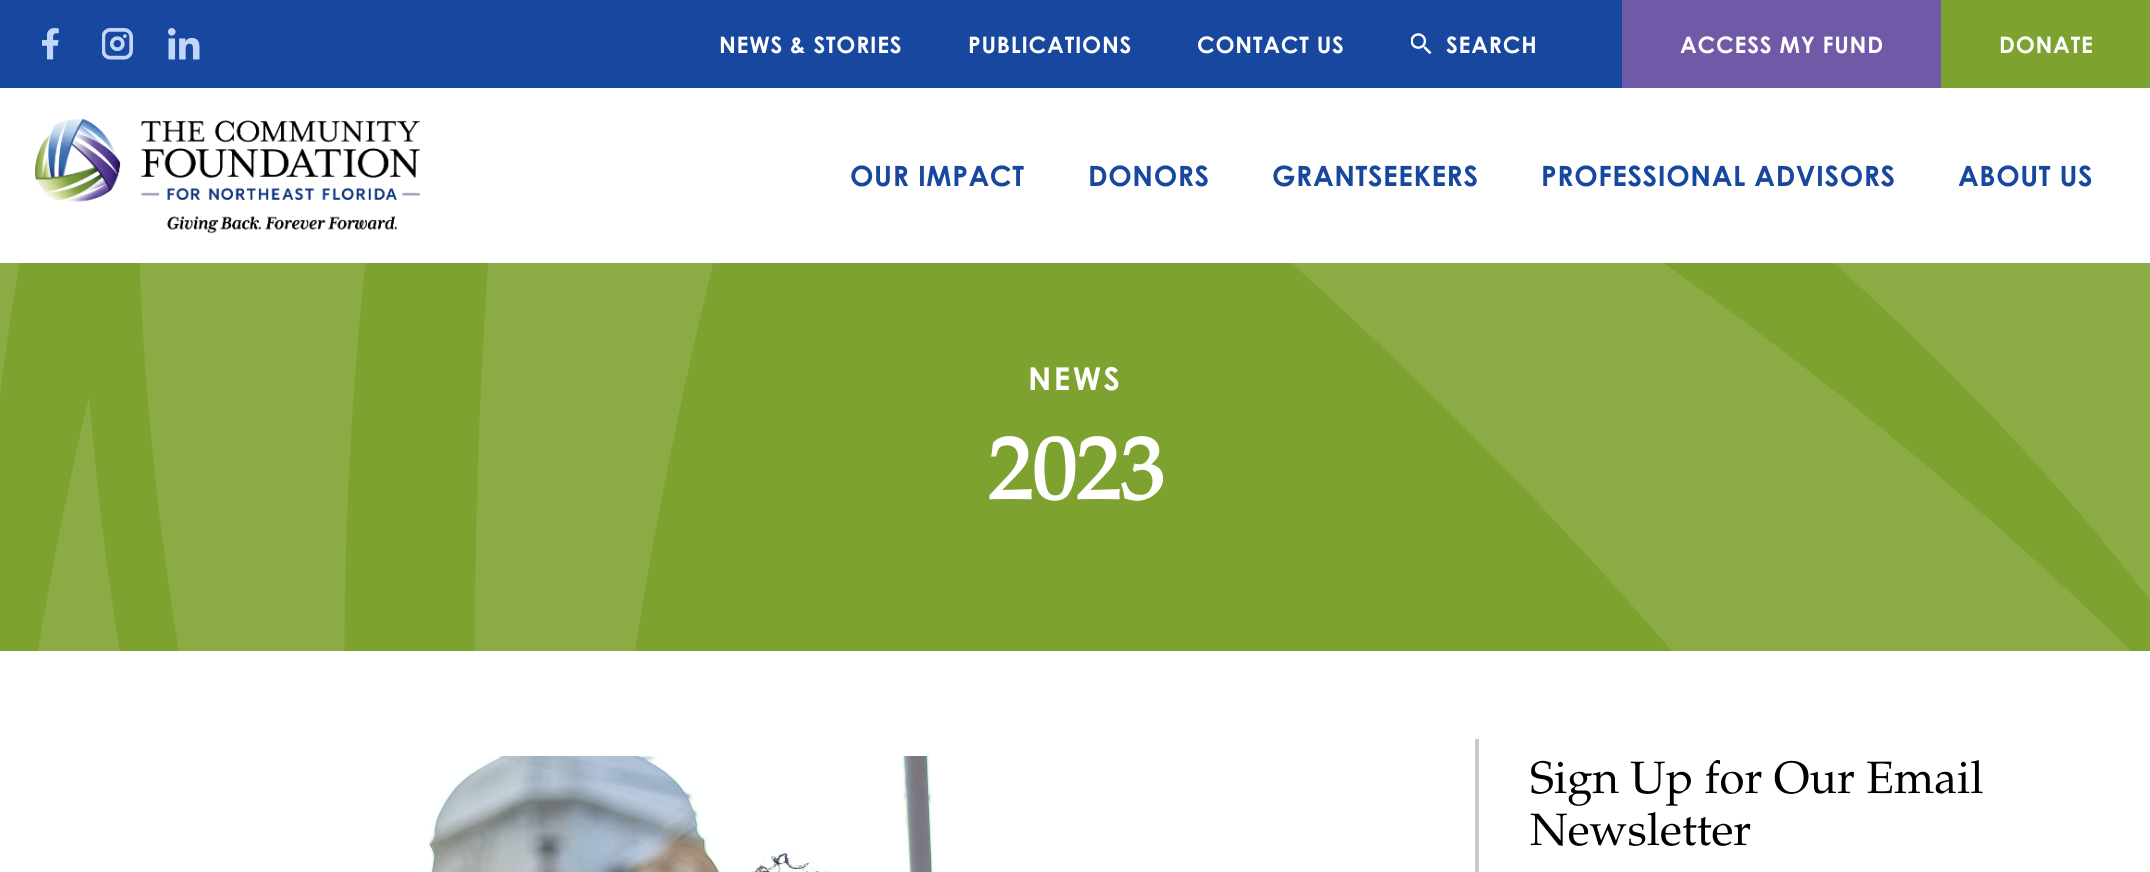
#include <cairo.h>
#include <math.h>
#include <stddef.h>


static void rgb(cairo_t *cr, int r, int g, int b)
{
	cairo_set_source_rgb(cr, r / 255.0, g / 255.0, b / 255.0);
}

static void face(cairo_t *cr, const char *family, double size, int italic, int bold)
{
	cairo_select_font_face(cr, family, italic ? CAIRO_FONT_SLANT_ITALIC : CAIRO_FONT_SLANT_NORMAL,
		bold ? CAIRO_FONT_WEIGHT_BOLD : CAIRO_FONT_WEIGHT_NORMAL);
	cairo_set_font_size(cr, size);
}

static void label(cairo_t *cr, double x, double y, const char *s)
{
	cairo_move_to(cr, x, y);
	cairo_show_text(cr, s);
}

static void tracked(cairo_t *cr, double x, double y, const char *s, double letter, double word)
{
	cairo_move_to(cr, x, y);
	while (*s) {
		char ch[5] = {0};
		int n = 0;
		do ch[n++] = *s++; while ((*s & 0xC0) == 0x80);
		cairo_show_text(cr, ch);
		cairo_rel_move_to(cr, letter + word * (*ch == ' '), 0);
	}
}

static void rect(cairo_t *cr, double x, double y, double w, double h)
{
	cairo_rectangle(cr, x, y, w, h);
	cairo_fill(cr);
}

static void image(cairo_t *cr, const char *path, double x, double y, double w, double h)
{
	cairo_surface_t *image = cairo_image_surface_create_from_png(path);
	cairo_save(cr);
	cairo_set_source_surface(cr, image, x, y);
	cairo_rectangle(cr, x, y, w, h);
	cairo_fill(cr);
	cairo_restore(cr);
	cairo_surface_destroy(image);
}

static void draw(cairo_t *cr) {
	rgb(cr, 255, 255, 255);
	cairo_paint(cr);
	rgb(cr, 23, 71, 158);
	rect(cr, 0, 0, 1622, 88);
	image(cr, "image0.png", 42, 28, 17, 32);
	image(cr, "image1.png", 102, 28, 31, 32);
	image(cr, "image2.png", 168, 28, 32, 32);
	face(cr, "Century Gothic", 22.75, 0, 1);
	rgb(cr, 255, 255, 255);
	tracked(cr, 719, 53, "NEWS & STORIES", 0.75, 0);
	tracked(cr, 968, 53, "PUBLICATIONS", 0.75, 0);
	tracked(cr, 1197, 53, "CONTACT US", 0.75, 0);
	image(cr, "image3.png", 1411, 33, 21, 21);
	tracked(cr, 1446, 53, "SEARCH", 0.75, 0);
	rgb(cr, 112, 90, 167);
	rect(cr, 1622, 0, 319, 88);
	rgb(cr, 255, 255, 255);
	tracked(cr, 1680, 53, "ACCESS MY FUND", 0.75, 0);
	rgb(cr, 126, 162, 47);
	rect(cr, 1941, 0, 209, 88);
	rgb(cr, 255, 255, 255);
	tracked(cr, 1999, 53, "DONATE", 0.75, 0);
	image(cr, "image4.png", 35, 118, 385, 116);
	face(cr, "Century Gothic", 28, 0, 1);
	rgb(cr, 23, 71, 158);
	tracked(cr, 850, 186, "OUR IMPACT", 0.6, 0);
	tracked(cr, 1088, 186, "DONORS", 0.6, 0);
	tracked(cr, 1272, 186, "GRANTSEEKERS", 0.6, 0);
	tracked(cr, 1541, 186, "PROFESSIONAL ADVISORS", 0.6, 0);
	tracked(cr, 1958, 186, "ABOUT US", 0.6, 0);
	rgb(cr, 126, 162, 47);
	rect(cr, 0, 263, 2150, 388);
	image(cr, "image5.png", 0, 263, 2150, 388);
	face(cr, "Century Gothic", 31.5, 0, 1);
	rgb(cr, 255, 255, 255);
	tracked(cr, 1028, 390, "NEWS", 2.5, 0);
	face(cr, "Palatino", 88, 0, 1);
	label(cr, 988, 499, "2023");
	image(cr, "image6.png", 427, 756, 507, 116);
	rgb(cr, 201, 201, 201);
	rect(cr, 1475, 739, 4, 133);
	face(cr, "Palatino Thin", 45.5, 0, 0);
	rgb(cr, 0, 0, 0);
	label(cr, 1530, 793, "Sign Up for Our Email");
	label(cr, 1530, 845, "Newsletter");
}

int main(void) {
	cairo_surface_t *surface = cairo_image_surface_create(CAIRO_FORMAT_RGB24, 2150, 872);
	cairo_t *cr = cairo_create(surface);
	cairo_font_options_t *options = cairo_font_options_create();
	cairo_font_options_set_hint_metrics(options, CAIRO_HINT_METRICS_OFF);
	cairo_font_options_set_hint_style(options, CAIRO_HINT_STYLE_NONE);
	cairo_set_font_options(cr, options);
	cairo_set_miter_limit(cr, 4);
	draw(cr);
	cairo_surface_write_to_png(surface, "render.png");
	cairo_font_options_destroy(options);
	cairo_destroy(cr);
	cairo_surface_destroy(surface);
	return 0;
}
